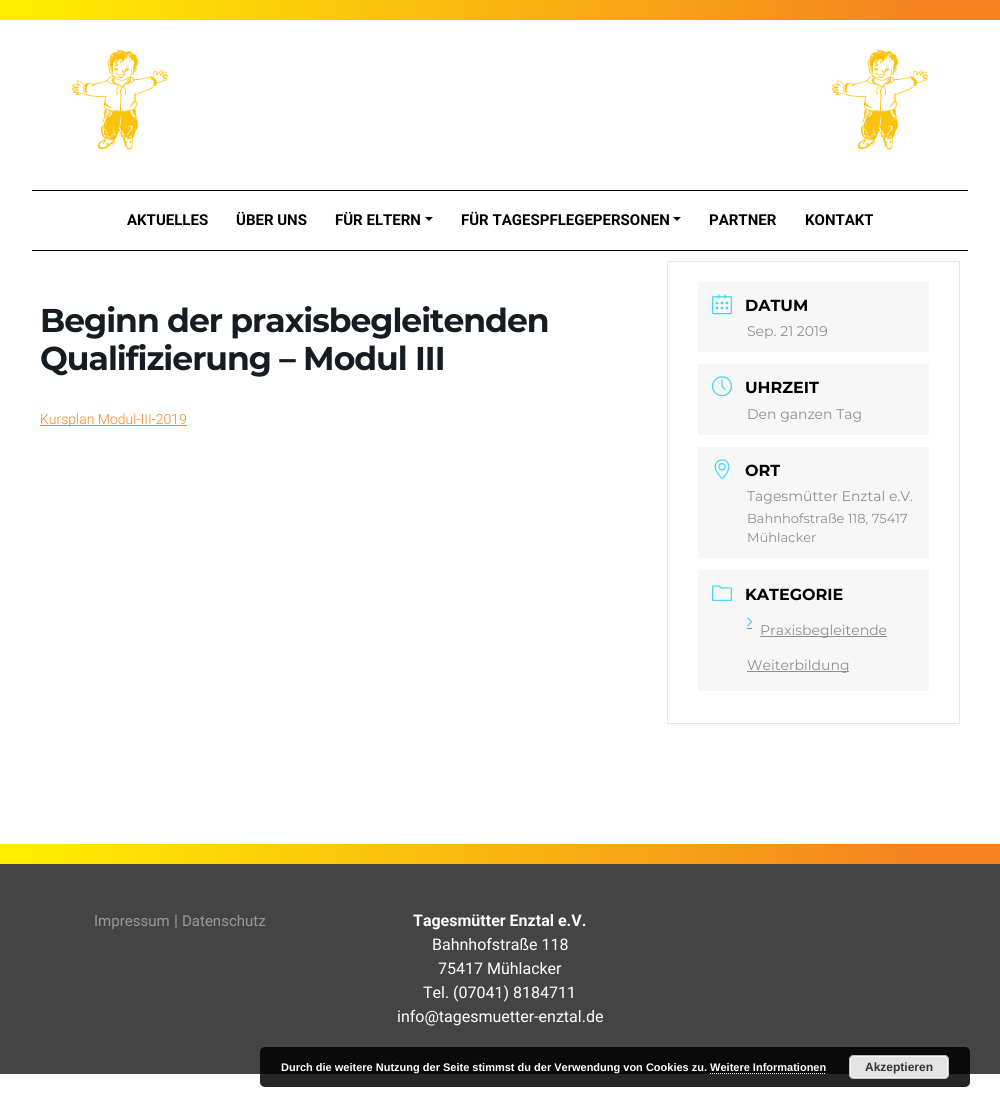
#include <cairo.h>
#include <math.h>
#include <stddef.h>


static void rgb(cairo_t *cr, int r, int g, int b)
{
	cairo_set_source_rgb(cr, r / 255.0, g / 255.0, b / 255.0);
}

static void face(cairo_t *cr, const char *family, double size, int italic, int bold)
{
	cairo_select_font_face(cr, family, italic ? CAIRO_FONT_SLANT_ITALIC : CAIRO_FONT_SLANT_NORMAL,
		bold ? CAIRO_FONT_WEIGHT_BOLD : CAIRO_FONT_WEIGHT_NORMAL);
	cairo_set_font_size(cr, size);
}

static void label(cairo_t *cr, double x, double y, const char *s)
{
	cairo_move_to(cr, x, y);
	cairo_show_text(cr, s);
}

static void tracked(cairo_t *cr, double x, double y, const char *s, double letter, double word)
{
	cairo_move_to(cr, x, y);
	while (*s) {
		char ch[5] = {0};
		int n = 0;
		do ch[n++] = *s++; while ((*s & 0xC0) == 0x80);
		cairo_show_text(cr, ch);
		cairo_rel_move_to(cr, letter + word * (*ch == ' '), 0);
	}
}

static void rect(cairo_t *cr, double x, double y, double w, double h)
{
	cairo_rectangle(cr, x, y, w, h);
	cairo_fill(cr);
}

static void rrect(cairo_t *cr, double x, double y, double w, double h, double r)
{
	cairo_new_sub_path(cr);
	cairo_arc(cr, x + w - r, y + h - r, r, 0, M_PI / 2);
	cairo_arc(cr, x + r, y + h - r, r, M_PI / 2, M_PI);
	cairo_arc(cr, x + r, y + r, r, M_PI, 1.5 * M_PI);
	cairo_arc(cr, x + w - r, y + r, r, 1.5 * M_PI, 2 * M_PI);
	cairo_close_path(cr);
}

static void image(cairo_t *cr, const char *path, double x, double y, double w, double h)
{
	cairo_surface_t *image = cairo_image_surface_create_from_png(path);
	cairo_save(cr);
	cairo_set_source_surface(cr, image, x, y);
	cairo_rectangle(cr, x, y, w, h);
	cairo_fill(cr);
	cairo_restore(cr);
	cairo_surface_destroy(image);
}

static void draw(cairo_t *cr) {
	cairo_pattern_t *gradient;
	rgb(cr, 255, 255, 255);
	cairo_paint(cr);
	gradient = cairo_pattern_create_linear(0, 10, 1000, 10);
	cairo_pattern_add_color_stop_rgba(gradient, 0.03, 1, 0.925, 0, 1);
	cairo_pattern_add_color_stop_rgba(gradient, 0.92, 0.961, 0.514, 0.122, 1);
	cairo_set_source(cr, gradient);
	cairo_pattern_destroy(gradient);
	rect(cr, 0, 0, 1000, 20);
	image(cr, "image0.png", 72, 50, 96, 101);
	image(cr, "image0.png", 832, 50, 96, 101);
	rgb(cr, 0, 0, 0);
	rect(cr, 32, 190, 936, 1);
	rect(cr, 32, 250, 936, 1);
	face(cr, "Roboto", 15, 0, 1);
	label(cr, 127, 225, "AKTUELLES");
	label(cr, 236, 225, "ÜBER UNS");
	label(cr, 335, 225, "FÜR ELTERN");
	cairo_new_path(cr);
	cairo_move_to(cr, 425, 217);
	cairo_line_to(cr, 433, 217);
	cairo_line_to(cr, 429, 221);
	cairo_close_path(cr);
	cairo_fill(cr);
	label(cr, 461, 225, "FÜR TAGESPFLEGEPERSONEN");
	cairo_new_path(cr);
	cairo_move_to(cr, 673, 217);
	cairo_line_to(cr, 681, 217);
	cairo_line_to(cr, 677, 221);
	cairo_close_path(cr);
	cairo_fill(cr);
	label(cr, 709, 225, "PARTNER");
	label(cr, 805, 225, "KONTAKT");
	face(cr, "Montserrat", 33, 0, 1);
	rgb(cr, 23, 28, 36);
	tracked(cr, 40, 332, "Beginn der praxisbegleitenden", -1, 0);
	tracked(cr, 40, 370, "Qualifizierung – Modul III", -1, 0);
	rgb(cr, 245, 131, 31);
	rect(cr, 40, 425, 147, 1);
	face(cr, "Roboto Light", 14, 0, 0);
	label(cr, 40, 424, "Kursplan Modul-III-2019");
	rgb(cr, 251, 251, 251);
	rect(cr, 667, 724, 293, 2);
	cairo_rectangle(cr, 667.5, 261.5, 292, 462);
	rgb(cr, 230, 230, 230);
	cairo_set_line_width(cr, 1);
	cairo_stroke(cr);
	rgb(cr, 247, 247, 247);
	rect(cr, 698, 282, 231, 70);
	image(cr, "image1.png", 712, 294, 20, 21);
	face(cr, "Montserrat", 16, 0, 1);
	rgb(cr, 0, 0, 0);
	label(cr, 745, 311, "DATUM");
	face(cr, "Montserrat", 14, 0, 0);
	rgb(cr, 141, 141, 141);
	label(cr, 747, 336, "Sep. 21 2019");
	rgb(cr, 247, 247, 247);
	rect(cr, 698, 364, 231, 71);
	image(cr, "image2.png", 712, 376, 20, 21);
	face(cr, "Montserrat", 16, 0, 1);
	rgb(cr, 0, 0, 0);
	label(cr, 745, 393, "UHRZEIT");
	face(cr, "Montserrat", 14, 0, 0);
	rgb(cr, 141, 141, 141);
	label(cr, 747, 419, "Den ganzen Tag");
	rgb(cr, 247, 247, 247);
	rect(cr, 698, 447, 231, 111);
	image(cr, "image3.png", 714, 459, 16, 21);
	face(cr, "Montserrat", 16, 0, 1);
	rgb(cr, 0, 0, 0);
	label(cr, 745, 476, "ORT");
	face(cr, "Montserrat", 14, 0, 0);
	rgb(cr, 141, 141, 141);
	label(cr, 747, 501, "Tagesmütter Enztal e.V.");
	face(cr, "Montserrat", 13, 0, 0);
	label(cr, 747, 523, "Bahnhofstraße 118, 75417");
	label(cr, 747, 542, "Mühlacker");
	rgb(cr, 247, 247, 247);
	rect(cr, 698, 570, 231, 121);
	image(cr, "image4.png", 712, 585, 20, 17);
	face(cr, "Montserrat", 16, 0, 1);
	rgb(cr, 0, 0, 0);
	label(cr, 745, 600, "KATEGORIE");
	image(cr, "image5.png", 747, 617, 6, 10);
	rgb(cr, 141, 141, 141);
	rect(cr, 760, 636, 127, 1);
	face(cr, "Montserrat", 14, 0, 0);
	label(cr, 760, 635, "Praxisbegleitende");
	rect(cr, 747, 628, 5, 1);
	rect(cr, 747, 671, 102, 1);
	label(cr, 747, 670, "Weiterbildung");
	rgb(cr, 68, 68, 68);
	rect(cr, 0, 864, 1000, 210);
	gradient = cairo_pattern_create_linear(0, 854, 1000, 854);
	cairo_pattern_add_color_stop_rgba(gradient, 0.03, 1, 0.925, 0, 1);
	cairo_pattern_add_color_stop_rgba(gradient, 0.92, 0.961, 0.514, 0.122, 1);
	cairo_set_source(cr, gradient);
	cairo_pattern_destroy(gradient);
	rect(cr, 0, 844, 1000, 20);
	face(cr, "Roboto", 15, 0, 0);
	rgb(cr, 153, 153, 153);
	label(cr, 94, 926, "Impressum");
	face(cr, "Roboto", 16, 0, 0);
	label(cr, 174, 926, "|");
	face(cr, "Roboto", 15, 0, 0);
	label(cr, 182, 926, "Datenschutz");
	face(cr, "Roboto", 16, 0, 1);
	rgb(cr, 255, 255, 255);
	label(cr, 413, 926, "Tagesmütter Enztal e.V.");
	face(cr, "Roboto", 16, 0, 0);
	label(cr, 432, 950, "Bahnhofstraße 118");
	label(cr, 438, 974, "75417 Mühlacker");
	label(cr, 423, 998, "Tel. (07041) 8184711");
	label(cr, 397, 1022, "info@tagesmuetter-enztal.de");
	cairo_set_source_rgba(cr, 0, 0, 0, 0.85);
	rrect(cr, 260, 1047, 710, 40, 5);
	cairo_fill(cr);
	face(cr, "Liberation Sans", 11, 0, 1);
	rgb(cr, 255, 255, 255);
	label(cr, 281, 1071, "Durch die weitere Nutzung der Seite stimmst du der Verwendung von Cookies zu. Weitere Informationen");
	rgb(cr, 227, 227, 227);
	rrect(cr, 849, 1055, 100, 24, 5);
	cairo_fill(cr);
	rrect(cr, 850.5, 1056.5, 97, 21, 3.5);
	rgb(cr, 246, 246, 246);
	cairo_stroke(cr);
	rrect(cr, 849.5, 1055.5, 99, 23, 4.5);
	rgb(cr, 187, 187, 187);
	cairo_stroke(cr);
	face(cr, "Liberation Sans", 12, 0, 1);
	rgb(cr, 51, 51, 51);
	label(cr, 865, 1071, "Akzeptieren");
	cairo_new_path(cr);
	cairo_move_to(cr, 710, 1073.5);
	cairo_line_to(cr, 826, 1073.5);
	rgb(cr, 255, 255, 255);
	cairo_set_dash(cr, (double[]){1, 1}, 2, 0);
	cairo_stroke(cr);
}

int main(void) {
	cairo_surface_t *surface = cairo_image_surface_create(CAIRO_FORMAT_RGB24, 1000, 1117);
	cairo_t *cr = cairo_create(surface);
	cairo_font_options_t *options = cairo_font_options_create();
	cairo_font_options_set_hint_metrics(options, CAIRO_HINT_METRICS_OFF);
	cairo_font_options_set_hint_style(options, CAIRO_HINT_STYLE_NONE);
	cairo_set_font_options(cr, options);
	cairo_set_miter_limit(cr, 4);
	draw(cr);
	cairo_surface_write_to_png(surface, "render.png");
	cairo_font_options_destroy(options);
	cairo_destroy(cr);
	cairo_surface_destroy(surface);
	return 0;
}
